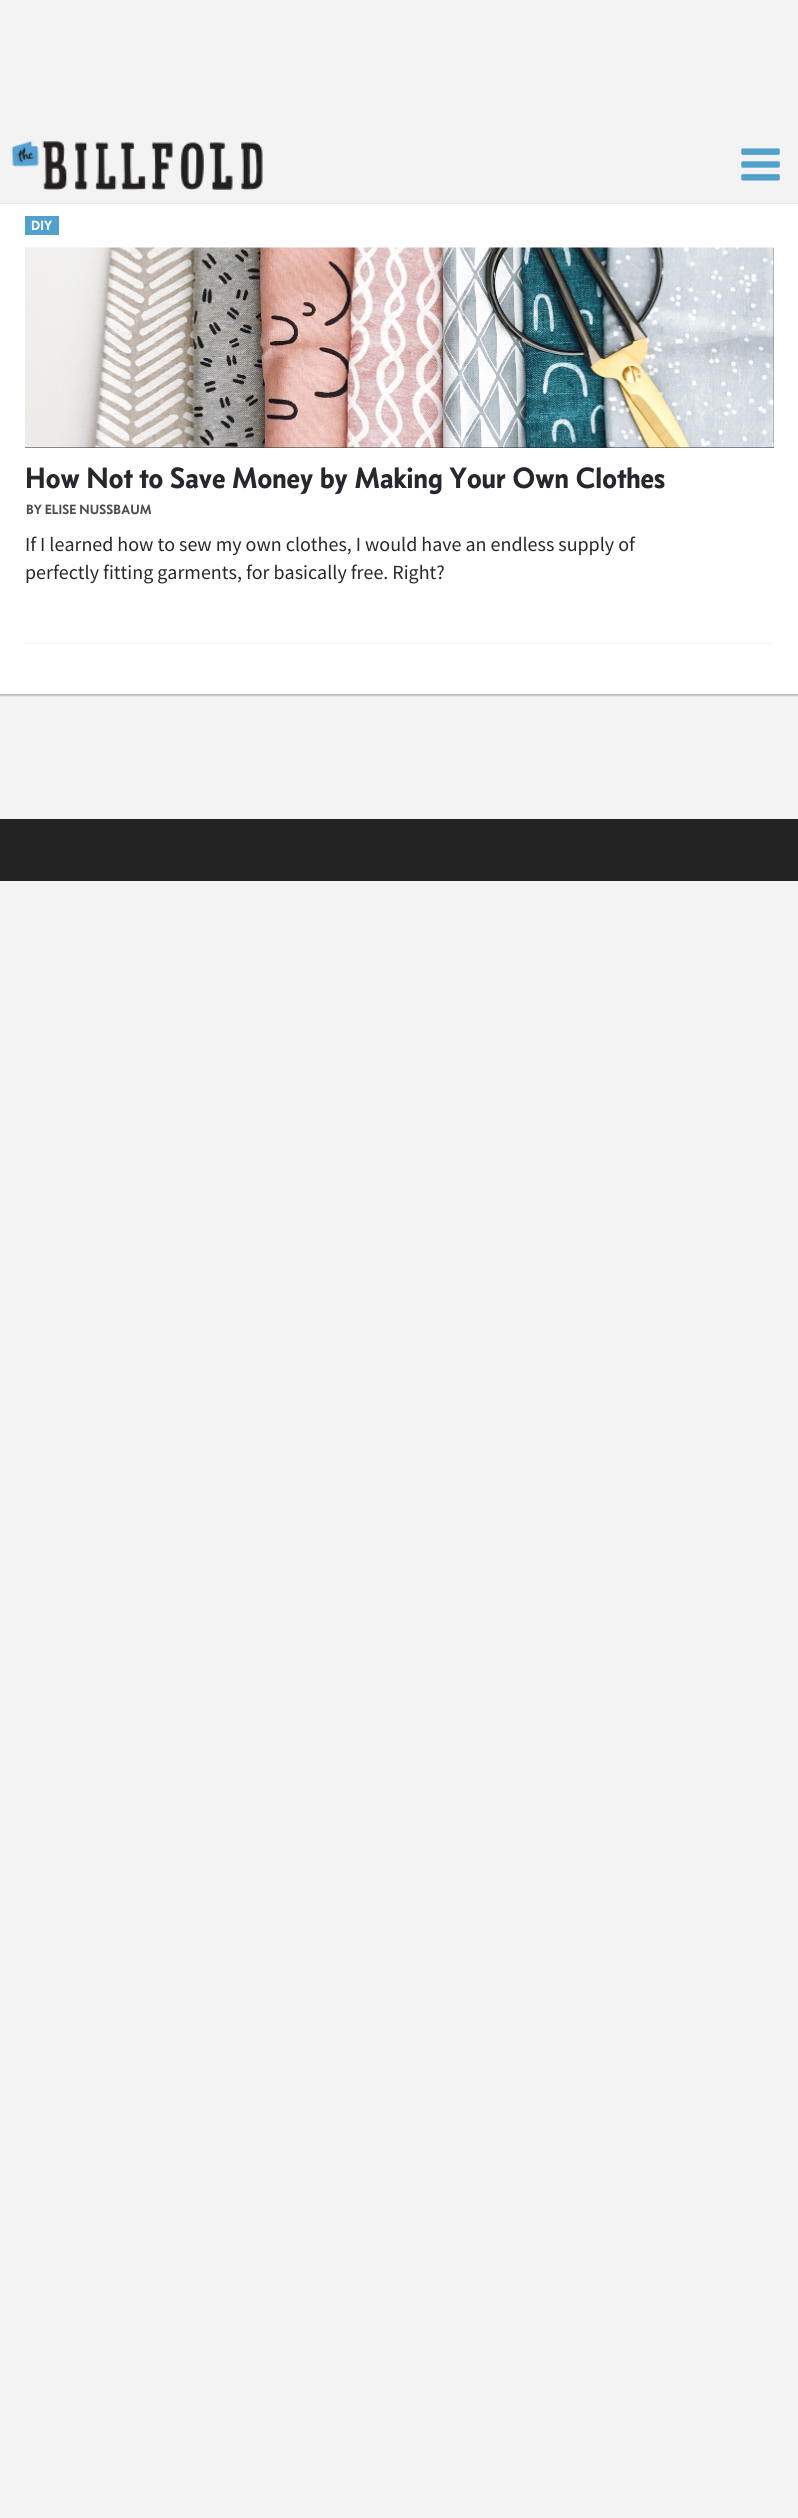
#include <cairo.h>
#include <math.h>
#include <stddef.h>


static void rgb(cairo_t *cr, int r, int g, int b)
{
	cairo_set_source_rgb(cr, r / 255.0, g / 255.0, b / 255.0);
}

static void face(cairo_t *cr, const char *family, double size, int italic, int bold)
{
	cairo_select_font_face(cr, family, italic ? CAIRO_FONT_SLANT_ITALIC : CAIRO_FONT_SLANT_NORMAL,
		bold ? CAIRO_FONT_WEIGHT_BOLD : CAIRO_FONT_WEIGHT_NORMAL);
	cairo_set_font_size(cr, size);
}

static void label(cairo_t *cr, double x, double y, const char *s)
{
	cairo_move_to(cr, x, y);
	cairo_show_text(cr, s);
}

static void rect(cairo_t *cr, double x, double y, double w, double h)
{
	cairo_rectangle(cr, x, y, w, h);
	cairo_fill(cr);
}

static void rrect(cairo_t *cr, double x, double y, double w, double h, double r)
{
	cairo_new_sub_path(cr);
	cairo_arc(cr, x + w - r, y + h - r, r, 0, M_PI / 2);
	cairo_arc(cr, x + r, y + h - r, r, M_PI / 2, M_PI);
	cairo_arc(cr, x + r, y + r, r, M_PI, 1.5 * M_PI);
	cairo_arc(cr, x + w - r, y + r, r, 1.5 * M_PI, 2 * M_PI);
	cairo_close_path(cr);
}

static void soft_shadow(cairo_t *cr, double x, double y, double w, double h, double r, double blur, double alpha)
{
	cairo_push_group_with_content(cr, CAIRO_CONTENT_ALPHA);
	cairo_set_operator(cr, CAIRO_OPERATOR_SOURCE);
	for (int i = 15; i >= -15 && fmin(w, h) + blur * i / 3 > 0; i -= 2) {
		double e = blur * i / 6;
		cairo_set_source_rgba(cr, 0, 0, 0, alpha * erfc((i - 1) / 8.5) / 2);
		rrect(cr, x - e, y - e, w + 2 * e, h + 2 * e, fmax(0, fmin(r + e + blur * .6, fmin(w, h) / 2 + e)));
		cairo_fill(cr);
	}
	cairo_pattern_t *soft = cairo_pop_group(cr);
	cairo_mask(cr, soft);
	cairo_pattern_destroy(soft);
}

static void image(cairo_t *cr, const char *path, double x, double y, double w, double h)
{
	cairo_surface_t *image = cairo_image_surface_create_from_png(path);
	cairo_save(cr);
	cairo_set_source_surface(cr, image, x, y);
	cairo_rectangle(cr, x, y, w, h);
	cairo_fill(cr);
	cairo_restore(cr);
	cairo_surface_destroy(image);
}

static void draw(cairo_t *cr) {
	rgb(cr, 243, 243, 243);
	cairo_paint(cr);
	image(cr, "image0.png", 12, 141, 251, 49);
	image(cr, "image1.png", 741, 148, 39, 33);
	rgb(cr, 0, 0, 0);
	soft_shadow(cr, 0, 206, 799, 490, 0, 0.5, 0.19);
	soft_shadow(cr, 0, 204, 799, 490, 0, 0.5, 0.19);
	rgb(cr, 255, 255, 255);
	rect(cr, 0, 204, 798, 490);
	rgb(cr, 242, 242, 242);
	rect(cr, 25, 643, 749, 1);
	rgb(cr, 82, 160, 204);
	rect(cr, 25, 216, 34, 19);
	face(cr, "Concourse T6 SemiBold", 13.75, 0, 0);
	rgb(cr, 255, 255, 255);
	label(cr, 31, 230, "DIY");
	rgb(cr, 38, 40, 46);
	rect(cr, 25, 248, 749, 200);
	image(cr, "image2.png", 25, 247, 749, 201);
	face(cr, "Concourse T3 SemiBold", 30, 0, 0);
	label(cr, 25, 488, "How Not to Save Money by Making Your Own Clothes");
	face(cr, "Concourse T3 SemiBold", 13.75, 0, 0);
	rgb(cr, 77, 77, 77);
	label(cr, 26, 514, "BY ELISE NUSSBAUM");
	face(cr, "Source Sans Pro", 20, 0, 0);
	rgb(cr, 38, 40, 46);
	label(cr, 25, 551, "If I learned how to sew my own clothes, I would have an endless supply of");
	label(cr, 25, 579, "perfectly fitting garments, for basically free. Right?");
	rgb(cr, 34, 34, 34);
	rect(cr, 0, 819, 798, 62);
}

int main(void) {
	cairo_surface_t *surface = cairo_image_surface_create(CAIRO_FORMAT_RGB24, 798, 2518);
	cairo_t *cr = cairo_create(surface);
	cairo_font_options_t *options = cairo_font_options_create();
	cairo_font_options_set_hint_metrics(options, CAIRO_HINT_METRICS_OFF);
	cairo_font_options_set_hint_style(options, CAIRO_HINT_STYLE_NONE);
	cairo_set_font_options(cr, options);
	cairo_set_miter_limit(cr, 4);
	draw(cr);
	cairo_surface_write_to_png(surface, "render.png");
	cairo_font_options_destroy(options);
	cairo_destroy(cr);
	cairo_surface_destroy(surface);
	return 0;
}
